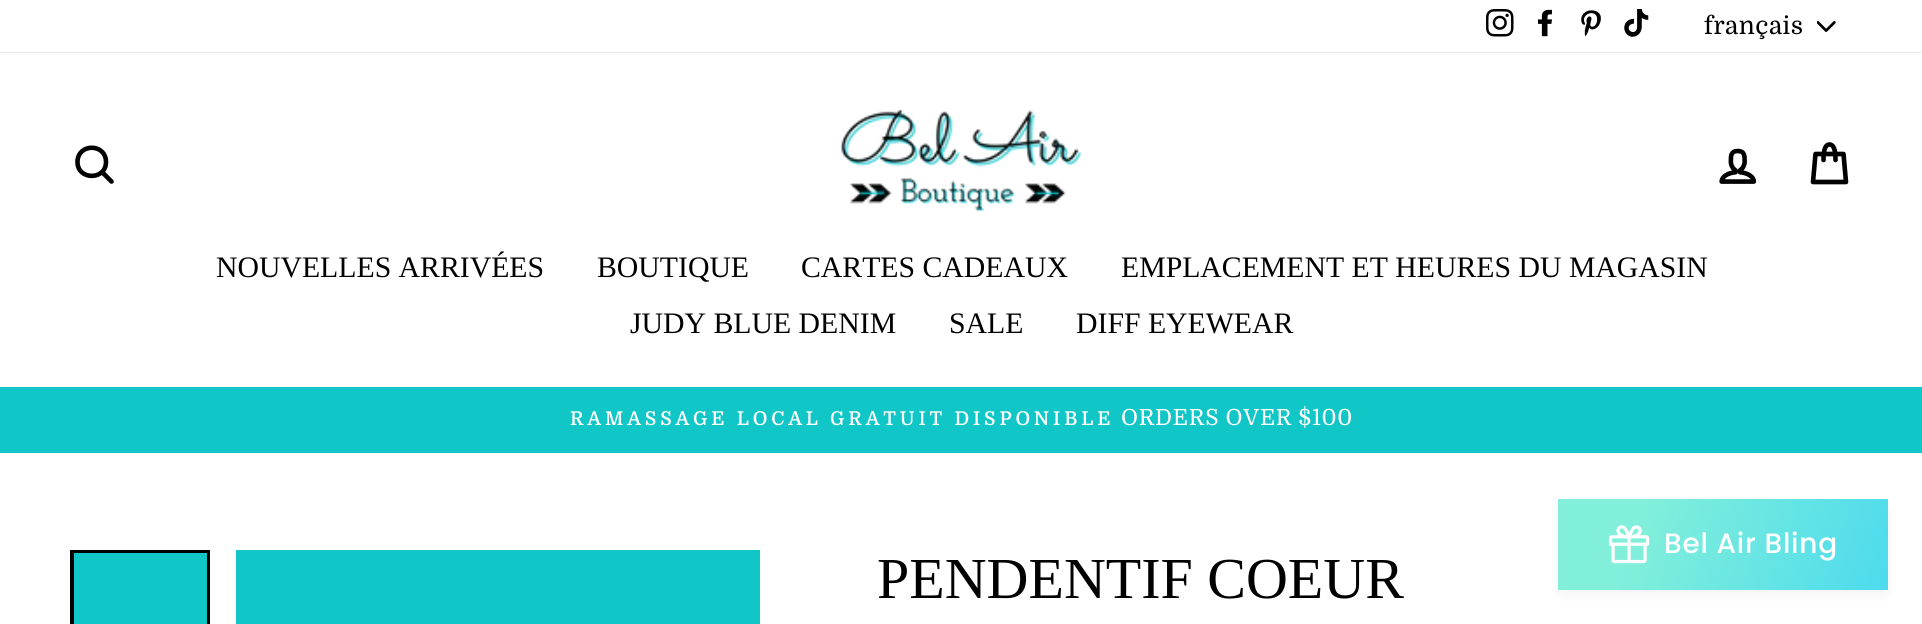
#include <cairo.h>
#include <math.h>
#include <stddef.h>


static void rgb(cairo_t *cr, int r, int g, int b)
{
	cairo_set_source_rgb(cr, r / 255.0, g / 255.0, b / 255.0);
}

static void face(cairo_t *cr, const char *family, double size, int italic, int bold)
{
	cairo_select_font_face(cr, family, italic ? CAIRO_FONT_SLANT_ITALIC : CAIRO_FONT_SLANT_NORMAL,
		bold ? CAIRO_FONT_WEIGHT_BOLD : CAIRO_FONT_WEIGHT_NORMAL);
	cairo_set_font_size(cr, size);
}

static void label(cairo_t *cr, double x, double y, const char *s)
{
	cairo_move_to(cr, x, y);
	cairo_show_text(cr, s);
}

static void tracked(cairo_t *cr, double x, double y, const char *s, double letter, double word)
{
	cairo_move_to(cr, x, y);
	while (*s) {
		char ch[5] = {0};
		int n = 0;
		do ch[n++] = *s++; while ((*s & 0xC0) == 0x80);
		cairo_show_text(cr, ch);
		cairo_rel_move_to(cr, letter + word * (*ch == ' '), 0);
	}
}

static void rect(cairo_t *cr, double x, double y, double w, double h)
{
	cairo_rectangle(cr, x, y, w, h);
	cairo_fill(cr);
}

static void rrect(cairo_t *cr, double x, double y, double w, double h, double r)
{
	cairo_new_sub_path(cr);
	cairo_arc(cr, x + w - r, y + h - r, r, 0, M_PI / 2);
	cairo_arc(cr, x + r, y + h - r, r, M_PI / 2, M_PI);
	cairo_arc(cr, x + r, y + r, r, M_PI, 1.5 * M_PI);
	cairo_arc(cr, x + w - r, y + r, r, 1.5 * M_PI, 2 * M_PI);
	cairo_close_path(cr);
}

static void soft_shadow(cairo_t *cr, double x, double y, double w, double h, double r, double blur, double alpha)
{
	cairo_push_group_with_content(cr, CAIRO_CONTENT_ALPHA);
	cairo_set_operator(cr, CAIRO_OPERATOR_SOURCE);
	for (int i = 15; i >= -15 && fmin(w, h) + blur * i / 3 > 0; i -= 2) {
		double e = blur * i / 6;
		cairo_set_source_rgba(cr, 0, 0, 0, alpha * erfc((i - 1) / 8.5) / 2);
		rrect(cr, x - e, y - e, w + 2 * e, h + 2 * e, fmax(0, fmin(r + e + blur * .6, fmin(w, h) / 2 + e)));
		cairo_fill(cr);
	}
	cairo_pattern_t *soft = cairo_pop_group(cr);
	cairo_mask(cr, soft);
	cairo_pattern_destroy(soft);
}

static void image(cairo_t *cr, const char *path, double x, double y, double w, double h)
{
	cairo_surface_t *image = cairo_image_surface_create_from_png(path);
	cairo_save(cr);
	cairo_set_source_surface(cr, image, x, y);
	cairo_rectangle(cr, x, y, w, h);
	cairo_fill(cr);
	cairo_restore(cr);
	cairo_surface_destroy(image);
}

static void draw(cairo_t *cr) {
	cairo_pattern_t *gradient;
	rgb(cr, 255, 255, 255);
	cairo_paint(cr);
	image(cr, "image0.png", 1486, 9, 28, 28);
	image(cr, "image1.png", 1537, 9, 15, 28);
	image(cr, "image2.png", 1581, 10, 20, 27);
	image(cr, "image3.png", 1624, 9, 25, 28);
	image(cr, "image4.png", 1817, 21, 19, 11);
	face(cr, "Domine", 24.5, 0, 0);
	rgb(cr, 0, 0, 0);
	tracked(cr, 1704, 34, "français", 0.5, 0);
	rgb(cr, 0, 0, 0);
	soft_shadow(cr, 0, 53, 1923, 334, 0, 1, 0.2);
	rgb(cr, 255, 255, 255);
	rect(cr, 0, 53, 1922, 334);
	cairo_new_path(cr);
	cairo_move_to(cr, 106, 162);
	cairo_curve_to(cr, 106, 180.5, 77.5, 180.5, 77.5, 162);
	cairo_curve_to(cr, 77.5, 143, 106, 143, 106, 162);
	cairo_close_path(cr);
	cairo_move_to(cr, 111.5, 181.5);
	cairo_line_to(cr, 102, 172);
	rgb(cr, 0, 0, 0);
	cairo_set_line_width(cr, 4.6);
	cairo_set_line_cap(cr, CAIRO_LINE_CAP_ROUND);
	cairo_set_line_join(cr, CAIRO_LINE_JOIN_ROUND);
	cairo_stroke(cr);
	image(cr, "image5.png", 841, 109, 241, 103);
	image(cr, "image6.png", 1719, 148, 38, 36);
	cairo_new_path(cr);
	cairo_move_to(cr, 1823.5, 160);
	cairo_curve_to(cr, 1823.5, 148, 1826, 144.5, 1829.5, 144.5);
	cairo_curve_to(cr, 1833, 144.5, 1835.5, 148, 1835.5, 160);
	cairo_move_to(cr, 1815.5, 154);
	cairo_line_to(cr, 1843.5, 154);
	cairo_line_to(cr, 1846, 182);
	cairo_line_to(cr, 1813, 182);
	cairo_close_path(cr);
	cairo_stroke(cr);
	face(cr, "Liberation Serif", 29.75, 0, 0);
	label(cr, 216, 277, "NOUVELLES ARRIVÉES");
	label(cr, 597, 277, "BOUTIQUE");
	label(cr, 801, 277, "CARTES CADEAUX");
	label(cr, 1121, 277, "EMPLACEMENT ET HEURES DU MAGASIN");
	label(cr, 630, 333, "JUDY BLUE DENIM");
	label(cr, 949, 333, "SALE");
	label(cr, 1076, 333, "DIFF EYEWEAR");
	rgb(cr, 17, 198, 198);
	rect(cr, 0, 387, 1922, 66);
	face(cr, "Domine SemiBold", 19, 0, 0);
	rgb(cr, 255, 255, 255);
	tracked(cr, 570, 425, "RAMASSAGE LOCAL GRATUIT DISPONIBLE", 3.8, 0);
	face(cr, "Domine", 22.25, 0, 0);
	tracked(cr, 1121, 425, "ORDERS OVER $100", 0.7, 0);
	cairo_rectangle(cr, 72, 552, 136, 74);
	rgb(cr, 0, 0, 0);
	cairo_set_line_width(cr, 4);
	cairo_set_line_cap(cr, CAIRO_LINE_CAP_BUTT);
	cairo_set_line_join(cr, CAIRO_LINE_JOIN_MITER);
	cairo_stroke(cr);
	rgb(cr, 17, 198, 198);
	rect(cr, 74, 553, 133, 71);
	rect(cr, 236, 550, 524, 74);
	face(cr, "Liberation Serif", 58, 0, 0);
	rgb(cr, 0, 0, 0);
	label(cr, 877, 598, "PENDENTIF COEUR");
	rgb(cr, 68, 68, 68);
	soft_shadow(cr, 1561, 509, 324, 84, 0, 7, 0.08);
	gradient = cairo_pattern_create_linear(1562, 487, 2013, 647);
	cairo_pattern_add_color_stop_rgba(gradient, 0.17, 0.51, 0.937, 0.855, 1);
	cairo_pattern_add_color_stop_rgba(gradient, 1, 0.192, 0.816, 0.969, 1);
	cairo_set_source(cr, gradient);
	cairo_pattern_destroy(gradient);
	rect(cr, 1558, 499, 330, 91);
	image(cr, "image7.png", 1609, 525, 41, 39);
	face(cr, "Poppins Medium", 28, 0, 0);
	rgb(cr, 255, 255, 255);
	tracked(cr, 1664, 553, "Bel Air Bling", 0.75, 0);
}

int main(void) {
	cairo_surface_t *surface = cairo_image_surface_create(CAIRO_FORMAT_RGB24, 1922, 624);
	cairo_t *cr = cairo_create(surface);
	cairo_font_options_t *options = cairo_font_options_create();
	cairo_font_options_set_hint_metrics(options, CAIRO_HINT_METRICS_OFF);
	cairo_font_options_set_hint_style(options, CAIRO_HINT_STYLE_NONE);
	cairo_set_font_options(cr, options);
	cairo_set_miter_limit(cr, 4);
	draw(cr);
	cairo_surface_write_to_png(surface, "render.png");
	cairo_font_options_destroy(options);
	cairo_destroy(cr);
	cairo_surface_destroy(surface);
	return 0;
}
